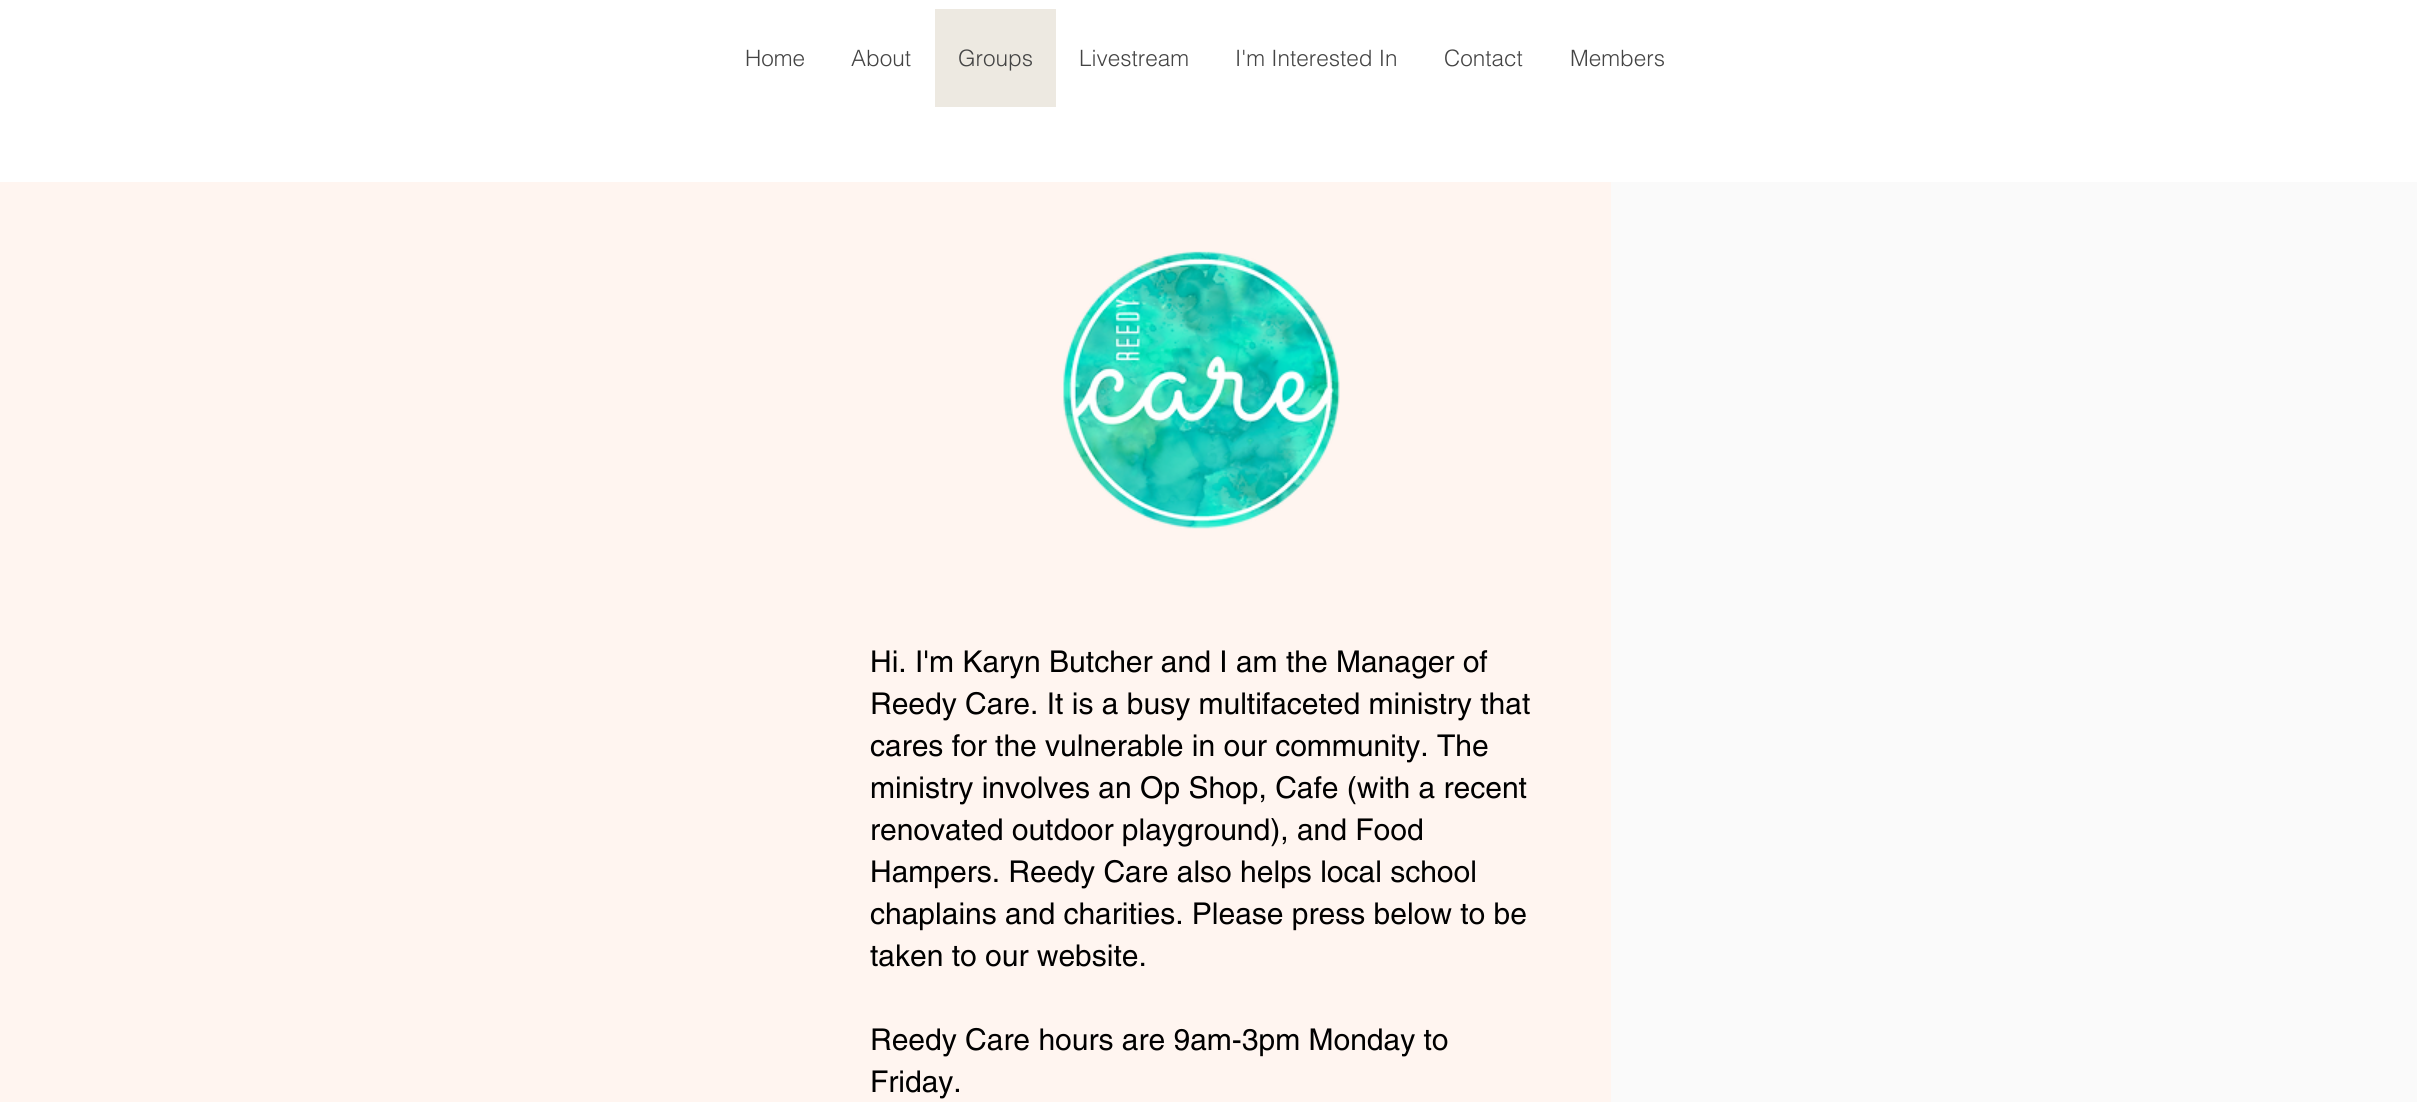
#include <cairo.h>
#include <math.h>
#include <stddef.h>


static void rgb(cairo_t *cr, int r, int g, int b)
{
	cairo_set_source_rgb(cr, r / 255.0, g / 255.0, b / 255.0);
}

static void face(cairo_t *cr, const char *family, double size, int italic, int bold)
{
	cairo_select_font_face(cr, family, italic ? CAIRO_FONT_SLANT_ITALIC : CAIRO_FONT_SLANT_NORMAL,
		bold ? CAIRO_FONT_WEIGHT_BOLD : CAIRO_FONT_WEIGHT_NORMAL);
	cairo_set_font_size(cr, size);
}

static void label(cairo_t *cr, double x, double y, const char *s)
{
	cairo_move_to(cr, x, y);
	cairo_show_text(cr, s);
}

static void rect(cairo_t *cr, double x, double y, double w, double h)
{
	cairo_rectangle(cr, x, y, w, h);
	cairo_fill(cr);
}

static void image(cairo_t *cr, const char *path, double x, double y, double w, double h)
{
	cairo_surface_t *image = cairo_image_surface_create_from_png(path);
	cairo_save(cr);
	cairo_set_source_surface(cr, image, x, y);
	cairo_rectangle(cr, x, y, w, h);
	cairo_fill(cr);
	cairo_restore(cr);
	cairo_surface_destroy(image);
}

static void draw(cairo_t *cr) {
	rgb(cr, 255, 245, 240);
	cairo_paint(cr);
	rgb(cr, 255, 255, 255);
	rect(cr, 0, 0, 2417, 182);
	face(cr, "helvetica Light", 22.5, 0, 0);
	rgb(cr, 68, 68, 68);
	label(cr, 745, 66, "Home");
	label(cr, 851, 66, "About");
	rgb(cr, 237, 233, 225);
	rect(cr, 935, 9, 121, 98);
	rgb(cr, 68, 68, 68);
	label(cr, 958, 66, "Groups");
	label(cr, 1079, 66, "Livestream");
	label(cr, 1235, 66, "I'm Interested In");
	label(cr, 1444, 66, "Contact");
	label(cr, 1570, 66, "Members");
	image(cr, "image0.png", 1063, 251, 277, 278);
	face(cr, "helvetica", 30, 0, 0);
	rgb(cr, 0, 0, 0);
	label(cr, 870, 672, "Hi. I'm Karyn Butcher and I am the Manager of");
	label(cr, 870, 714, "Reedy Care. It is a busy multifaceted ministry that");
	label(cr, 870, 756, "cares for the vulnerable in our community. The");
	label(cr, 870, 798, "ministry involves an Op Shop, Cafe (with a recent");
	label(cr, 870, 840, "renovated outdoor playground), and Food");
	label(cr, 870, 882, "Hampers. Reedy Care also helps local school");
	label(cr, 870, 924, "chaplains and charities. Please press below to be");
	label(cr, 870, 966, "taken to our website.");
	label(cr, 870, 1050, "Reedy Care hours are 9am-3pm Monday to");
	label(cr, 870, 1092, "Friday.");
	rgb(cr, 250, 250, 250);
	rect(cr, 1611, 182, 806, 920);
}

int main(void) {
	cairo_surface_t *surface = cairo_image_surface_create(CAIRO_FORMAT_RGB24, 2417, 1102);
	cairo_t *cr = cairo_create(surface);
	cairo_font_options_t *options = cairo_font_options_create();
	cairo_font_options_set_hint_metrics(options, CAIRO_HINT_METRICS_OFF);
	cairo_font_options_set_hint_style(options, CAIRO_HINT_STYLE_NONE);
	cairo_set_font_options(cr, options);
	cairo_set_miter_limit(cr, 4);
	draw(cr);
	cairo_surface_write_to_png(surface, "render.png");
	cairo_font_options_destroy(options);
	cairo_destroy(cr);
	cairo_surface_destroy(surface);
	return 0;
}
